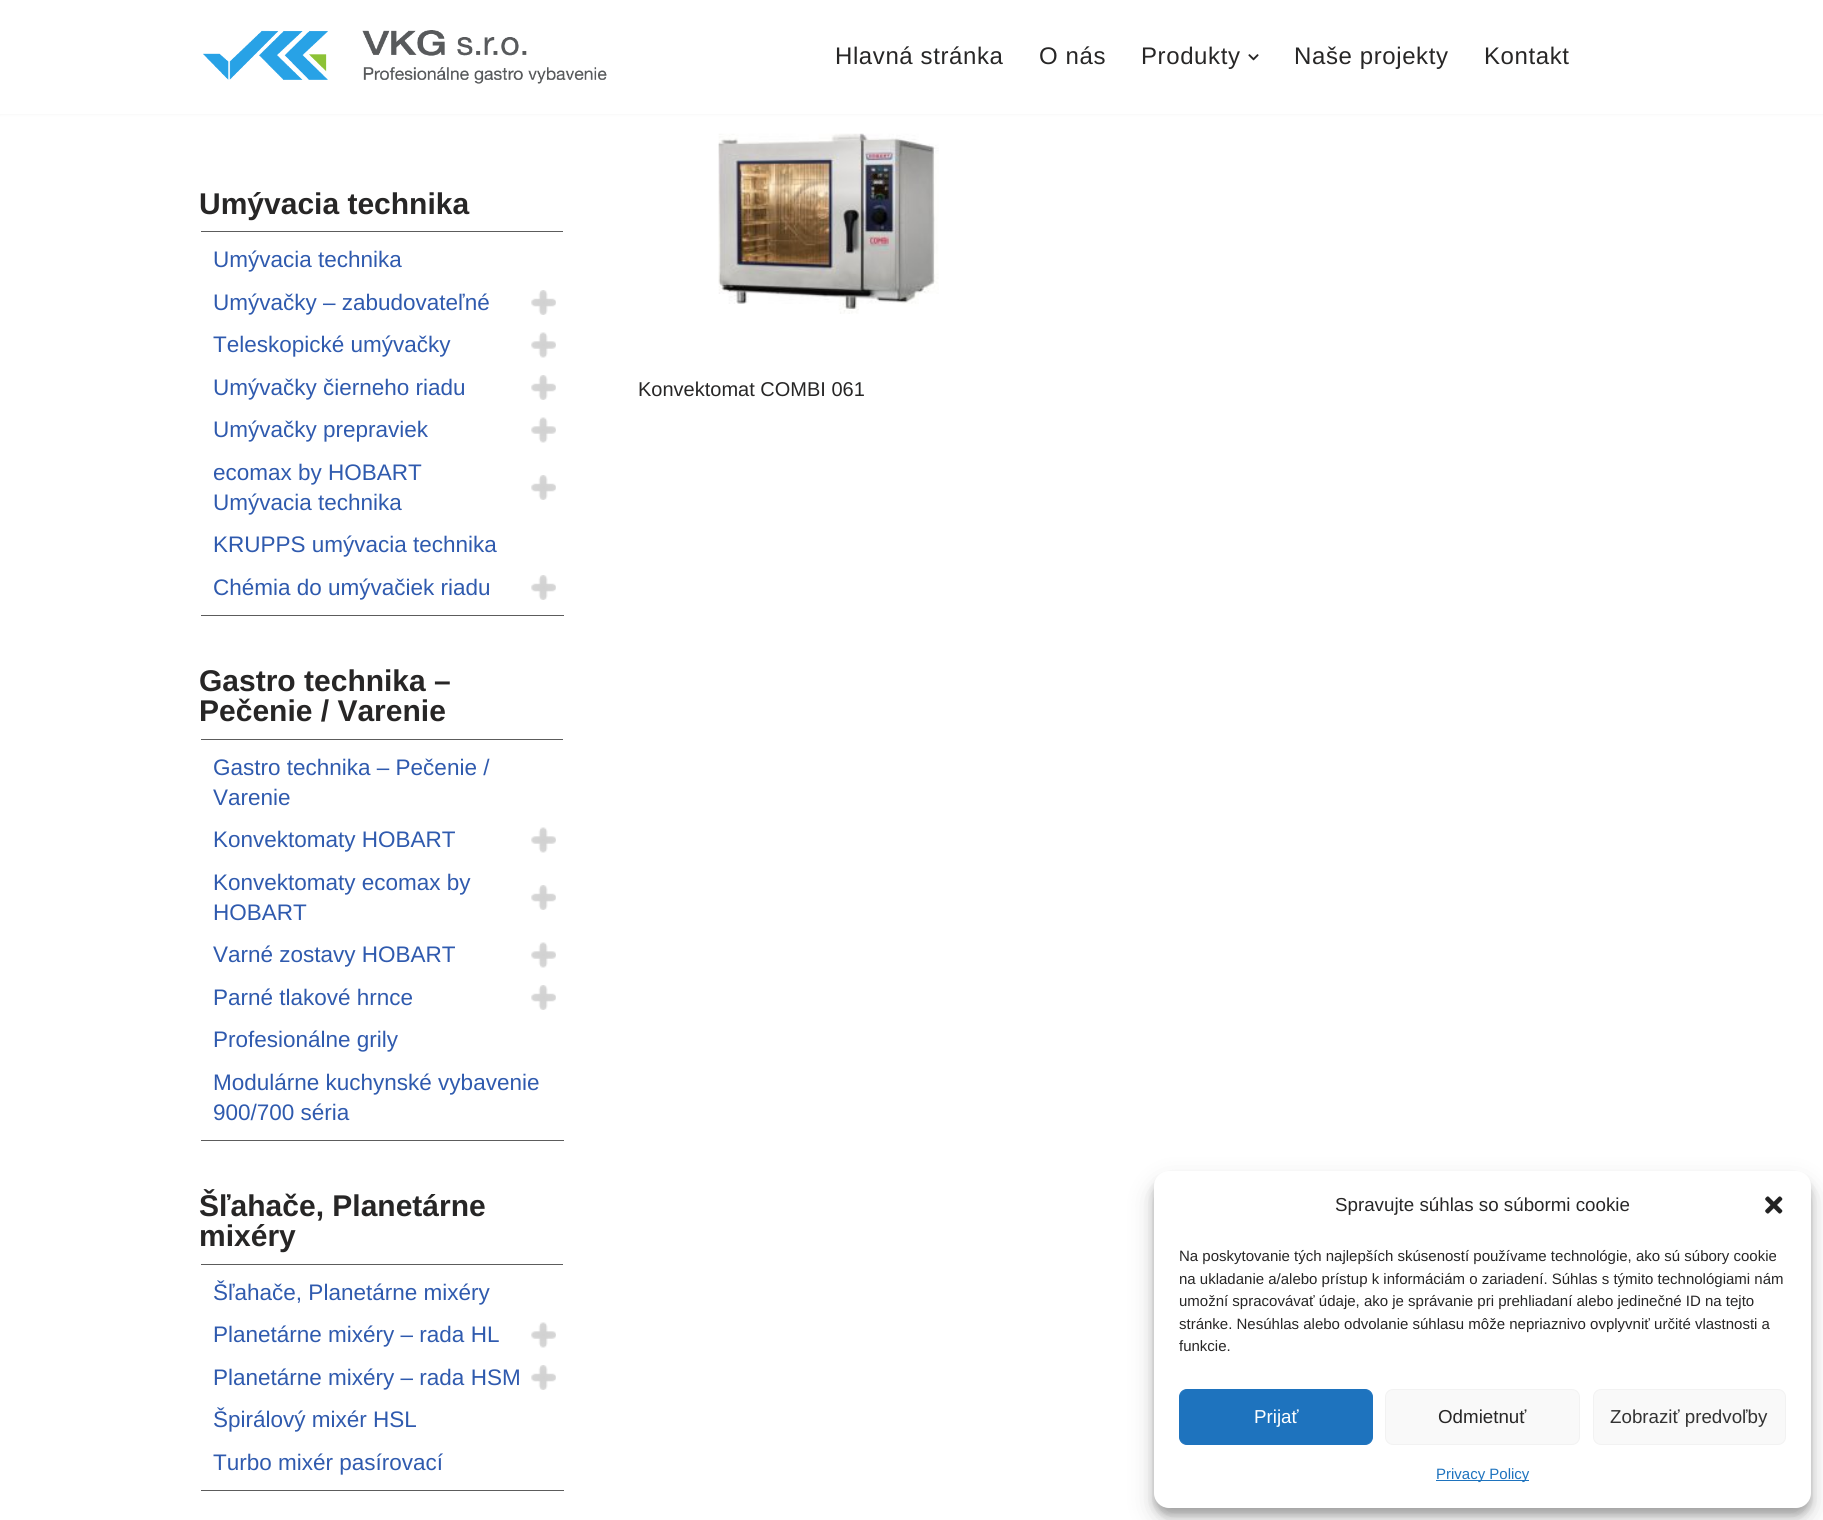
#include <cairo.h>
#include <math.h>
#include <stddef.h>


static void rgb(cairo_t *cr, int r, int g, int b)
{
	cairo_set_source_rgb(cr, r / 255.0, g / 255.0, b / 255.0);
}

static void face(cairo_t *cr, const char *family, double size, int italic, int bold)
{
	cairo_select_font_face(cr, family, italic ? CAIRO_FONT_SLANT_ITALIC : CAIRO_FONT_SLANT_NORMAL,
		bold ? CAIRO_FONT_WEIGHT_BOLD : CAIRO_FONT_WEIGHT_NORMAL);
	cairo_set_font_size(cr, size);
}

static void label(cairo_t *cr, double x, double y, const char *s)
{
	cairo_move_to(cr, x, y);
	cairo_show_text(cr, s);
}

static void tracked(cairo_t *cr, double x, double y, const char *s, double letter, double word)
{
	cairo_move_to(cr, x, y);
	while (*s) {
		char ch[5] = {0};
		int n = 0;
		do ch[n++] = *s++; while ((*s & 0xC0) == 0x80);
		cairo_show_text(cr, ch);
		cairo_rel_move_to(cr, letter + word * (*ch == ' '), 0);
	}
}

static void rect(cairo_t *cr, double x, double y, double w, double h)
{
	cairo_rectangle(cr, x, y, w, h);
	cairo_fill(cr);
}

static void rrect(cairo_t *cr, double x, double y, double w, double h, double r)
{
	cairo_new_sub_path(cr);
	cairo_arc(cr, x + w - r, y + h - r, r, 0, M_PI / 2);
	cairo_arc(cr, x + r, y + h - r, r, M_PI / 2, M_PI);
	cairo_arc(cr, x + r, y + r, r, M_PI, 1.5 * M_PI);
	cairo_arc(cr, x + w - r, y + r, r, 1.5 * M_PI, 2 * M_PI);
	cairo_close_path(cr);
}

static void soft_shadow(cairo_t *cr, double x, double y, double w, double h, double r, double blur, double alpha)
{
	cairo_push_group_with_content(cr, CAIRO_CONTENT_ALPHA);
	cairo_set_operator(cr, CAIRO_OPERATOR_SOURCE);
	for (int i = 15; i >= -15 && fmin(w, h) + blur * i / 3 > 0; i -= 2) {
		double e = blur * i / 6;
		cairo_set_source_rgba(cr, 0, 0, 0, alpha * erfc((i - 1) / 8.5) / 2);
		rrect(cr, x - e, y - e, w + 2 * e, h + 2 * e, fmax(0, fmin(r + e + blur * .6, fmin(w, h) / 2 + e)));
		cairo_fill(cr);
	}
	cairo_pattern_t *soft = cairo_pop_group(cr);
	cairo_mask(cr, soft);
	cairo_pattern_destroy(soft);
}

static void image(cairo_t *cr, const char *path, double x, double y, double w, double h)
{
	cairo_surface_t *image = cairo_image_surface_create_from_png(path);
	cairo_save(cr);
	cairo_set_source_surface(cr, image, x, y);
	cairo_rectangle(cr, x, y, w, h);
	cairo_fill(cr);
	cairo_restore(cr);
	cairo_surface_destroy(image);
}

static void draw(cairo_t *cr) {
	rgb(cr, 255, 255, 255);
	cairo_paint(cr);
	rgb(cr, 0, 0, 0);
	soft_shadow(cr, 0, -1, 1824, 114, 0, 2, 0.1);
	rgb(cr, 255, 255, 255);
	rect(cr, 0, 0, 1823, 114);
	image(cr, "image0.png", 203, 30, 404, 54);
	face(cr, "Liberation Sans", 24, 0, 0);
	rgb(cr, 39, 38, 38);
	tracked(cr, 835, 64, "Hlavná stránka", 0.6, 0);
	tracked(cr, 1039, 64, "O nás", 0.6, 0);
	tracked(cr, 1141, 64, "Produkty", 0.6, 0);
	image(cr, "image1.png", 1248, 54, 11, 7);
	tracked(cr, 1294, 64, "Naše projekty", 0.6, 0);
	tracked(cr, 1484, 64, "Kontakt", 0.6, 0);
	face(cr, "Liberation Sans", 30, 0, 1);
	label(cr, 199, 214, "Umývacia technika");
	rgb(cr, 92, 92, 92);
	rect(cr, 200, 231, 364, 1);
	rgb(cr, 255, 255, 255);
	rect(cr, 563, 231, 1, 1);
	rgb(cr, 92, 92, 92);
	rect(cr, 200, 615, 364, 1);
	rgb(cr, 255, 255, 255);
	rect(cr, 200, 231, 1, 385);
	face(cr, "Liberation Sans", 22.5, 0, 0);
	rgb(cr, 47, 90, 174);
	label(cr, 213, 267, "Umývacia technika");
	label(cr, 213, 310, "Umývačky – zabudovateľné");
	image(cr, "image2.png", 531, 290, 25, 25);
	label(cr, 213, 352, "Teleskopické umývačky");
	image(cr, "image3.png", 531, 332, 25, 26);
	label(cr, 213, 395, "Umývačky čierneho riadu");
	image(cr, "image4.png", 531, 375, 25, 25);
	label(cr, 213, 437, "Umývačky prepraviek");
	image(cr, "image3.png", 531, 417, 25, 26);
	label(cr, 213, 480, "ecomax by HOBART");
	label(cr, 213, 510, "Umývacia technika");
	image(cr, "image4.png", 531, 475, 25, 25);
	label(cr, 213, 552, "KRUPPS umývacia technika");
	label(cr, 213, 595, "Chémia do umývačiek riadu");
	image(cr, "image5.png", 531, 575, 25, 25);
	face(cr, "Liberation Sans", 30, 0, 1);
	rgb(cr, 39, 38, 38);
	label(cr, 199, 691, "Gastro technika –");
	label(cr, 199, 721, "Pečenie / Varenie");
	rgb(cr, 92, 92, 92);
	rect(cr, 200, 739, 364, 1);
	rgb(cr, 255, 255, 255);
	rect(cr, 563, 739, 1, 1);
	rgb(cr, 92, 92, 92);
	rect(cr, 200, 1140, 364, 1);
	rgb(cr, 255, 255, 255);
	rect(cr, 200, 739, 1, 402);
	face(cr, "Liberation Sans", 22.5, 0, 0);
	rgb(cr, 47, 90, 174);
	label(cr, 213, 775, "Gastro technika – Pečenie /");
	label(cr, 213, 805, "Varenie");
	label(cr, 213, 847, "Konvektomaty HOBART");
	image(cr, "image3.png", 531, 827, 25, 26);
	label(cr, 213, 890, "Konvektomaty ecomax by");
	label(cr, 213, 920, "HOBART");
	image(cr, "image4.png", 531, 885, 25, 25);
	label(cr, 213, 962, "Varné zostavy HOBART");
	image(cr, "image3.png", 531, 942, 25, 26);
	label(cr, 213, 1005, "Parné tlakové hrnce");
	image(cr, "image4.png", 531, 985, 25, 25);
	label(cr, 213, 1047, "Profesionálne grily");
	label(cr, 213, 1090, "Modulárne kuchynské vybavenie");
	label(cr, 213, 1120, "900/700 séria");
	face(cr, "Liberation Sans", 30, 0, 1);
	rgb(cr, 39, 38, 38);
	label(cr, 199, 1216, "Šľahače, Planetárne");
	label(cr, 199, 1246, "mixéry");
	rgb(cr, 92, 92, 92);
	rect(cr, 200, 1264, 364, 1);
	rgb(cr, 255, 255, 255);
	rect(cr, 563, 1264, 1, 1);
	rgb(cr, 92, 92, 92);
	rect(cr, 200, 1490, 364, 1);
	rgb(cr, 255, 255, 255);
	rect(cr, 200, 1264, 1, 227);
	face(cr, "Liberation Sans", 22.5, 0, 0);
	rgb(cr, 47, 90, 174);
	label(cr, 213, 1300, "Šľahače, Planetárne mixéry");
	label(cr, 213, 1342, "Planetárne mixéry – rada HL");
	image(cr, "image3.png", 531, 1322, 25, 26);
	label(cr, 213, 1385, "Planetárne mixéry – rada HSM");
	image(cr, "image4.png", 531, 1365, 25, 25);
	label(cr, 213, 1427, "Špirálový mixér HSL");
	label(cr, 213, 1470, "Turbo mixér pasírovací");
	image(cr, "image6.png", 718, 133, 221, 181);
	face(cr, "Liberation Sans", 20, 0, 0);
	rgb(cr, 39, 38, 38);
	label(cr, 638, 396, "Konvektomat COMBI 061");
	rgb(cr, 0, 0, 0);
	soft_shadow(cr, 1154, 1179, 657, 336, 15, 4, 0.23);
	soft_shadow(cr, 1154, 1184, 657, 336, 15, 12.5, 0.19);
	rgb(cr, 255, 255, 255);
	rrect(cr, 1154, 1171, 657, 337, 15);
	cairo_fill(cr);
	face(cr, "Liberation Sans", 18.75, 0, 0);
	rgb(cr, 39, 38, 38);
	label(cr, 1335, 1211, "Spravujte súhlas so súbormi cookie");
	image(cr, "image7.png", 1765, 1196, 18, 18);
	face(cr, "Liberation Sans", 15, 0, 0);
	label(cr, 1179, 1261, "Na poskytovanie tých najlepších skúseností používame technológie, ako sú súbory cookie");
	label(cr, 1179, 1284, "na ukladanie a/alebo prístup k informáciám o zariadení. Súhlas s týmito technológiami nám");
	label(cr, 1179, 1306, "umožní spracovávať údaje, ako je správanie pri prehliadaní alebo jedinečné ID na tejto");
	label(cr, 1179, 1329, "stránke. Nesúhlas alebo odvolanie súhlasu môže nepriaznivo ovplyvniť určité vlastnosti a");
	label(cr, 1179, 1351, "funkcie.");
	rgb(cr, 30, 115, 190);
	rrect(cr, 1179.5, 1389.5, 193, 55, 7.5);
	cairo_fill_preserve(cr);
	cairo_set_line_width(cr, 1);
	cairo_stroke(cr);
	face(cr, "Liberation Sans", 18.75, 0, 0);
	rgb(cr, 255, 255, 255);
	label(cr, 1254, 1423, "Prijať");
	rgb(cr, 249, 249, 249);
	rrect(cr, 1385.5, 1389.5, 194, 55, 7.5);
	cairo_fill_preserve(cr);
	rgb(cr, 242, 242, 242);
	cairo_stroke(cr);
	rgb(cr, 39, 38, 38);
	label(cr, 1438, 1423, "Odmietnuť");
	rgb(cr, 249, 249, 249);
	rrect(cr, 1593.5, 1389.5, 192, 55, 7.5);
	cairo_fill_preserve(cr);
	rgb(cr, 242, 242, 242);
	cairo_stroke(cr);
	rgb(cr, 51, 51, 51);
	label(cr, 1610, 1423, "Zobraziť predvoľby");
	rgb(cr, 30, 115, 190);
	rect(cr, 1436, 1480, 93, 1);
	face(cr, "Liberation Sans", 15, 0, 0);
	label(cr, 1436, 1479, "Privacy Policy");
}

int main(void) {
	cairo_surface_t *surface = cairo_image_surface_create(CAIRO_FORMAT_RGB24, 1823, 1520);
	cairo_t *cr = cairo_create(surface);
	cairo_font_options_t *options = cairo_font_options_create();
	cairo_font_options_set_hint_metrics(options, CAIRO_HINT_METRICS_OFF);
	cairo_font_options_set_hint_style(options, CAIRO_HINT_STYLE_NONE);
	cairo_set_font_options(cr, options);
	cairo_set_miter_limit(cr, 4);
	draw(cr);
	cairo_surface_write_to_png(surface, "render.png");
	cairo_font_options_destroy(options);
	cairo_destroy(cr);
	cairo_surface_destroy(surface);
	return 0;
}
